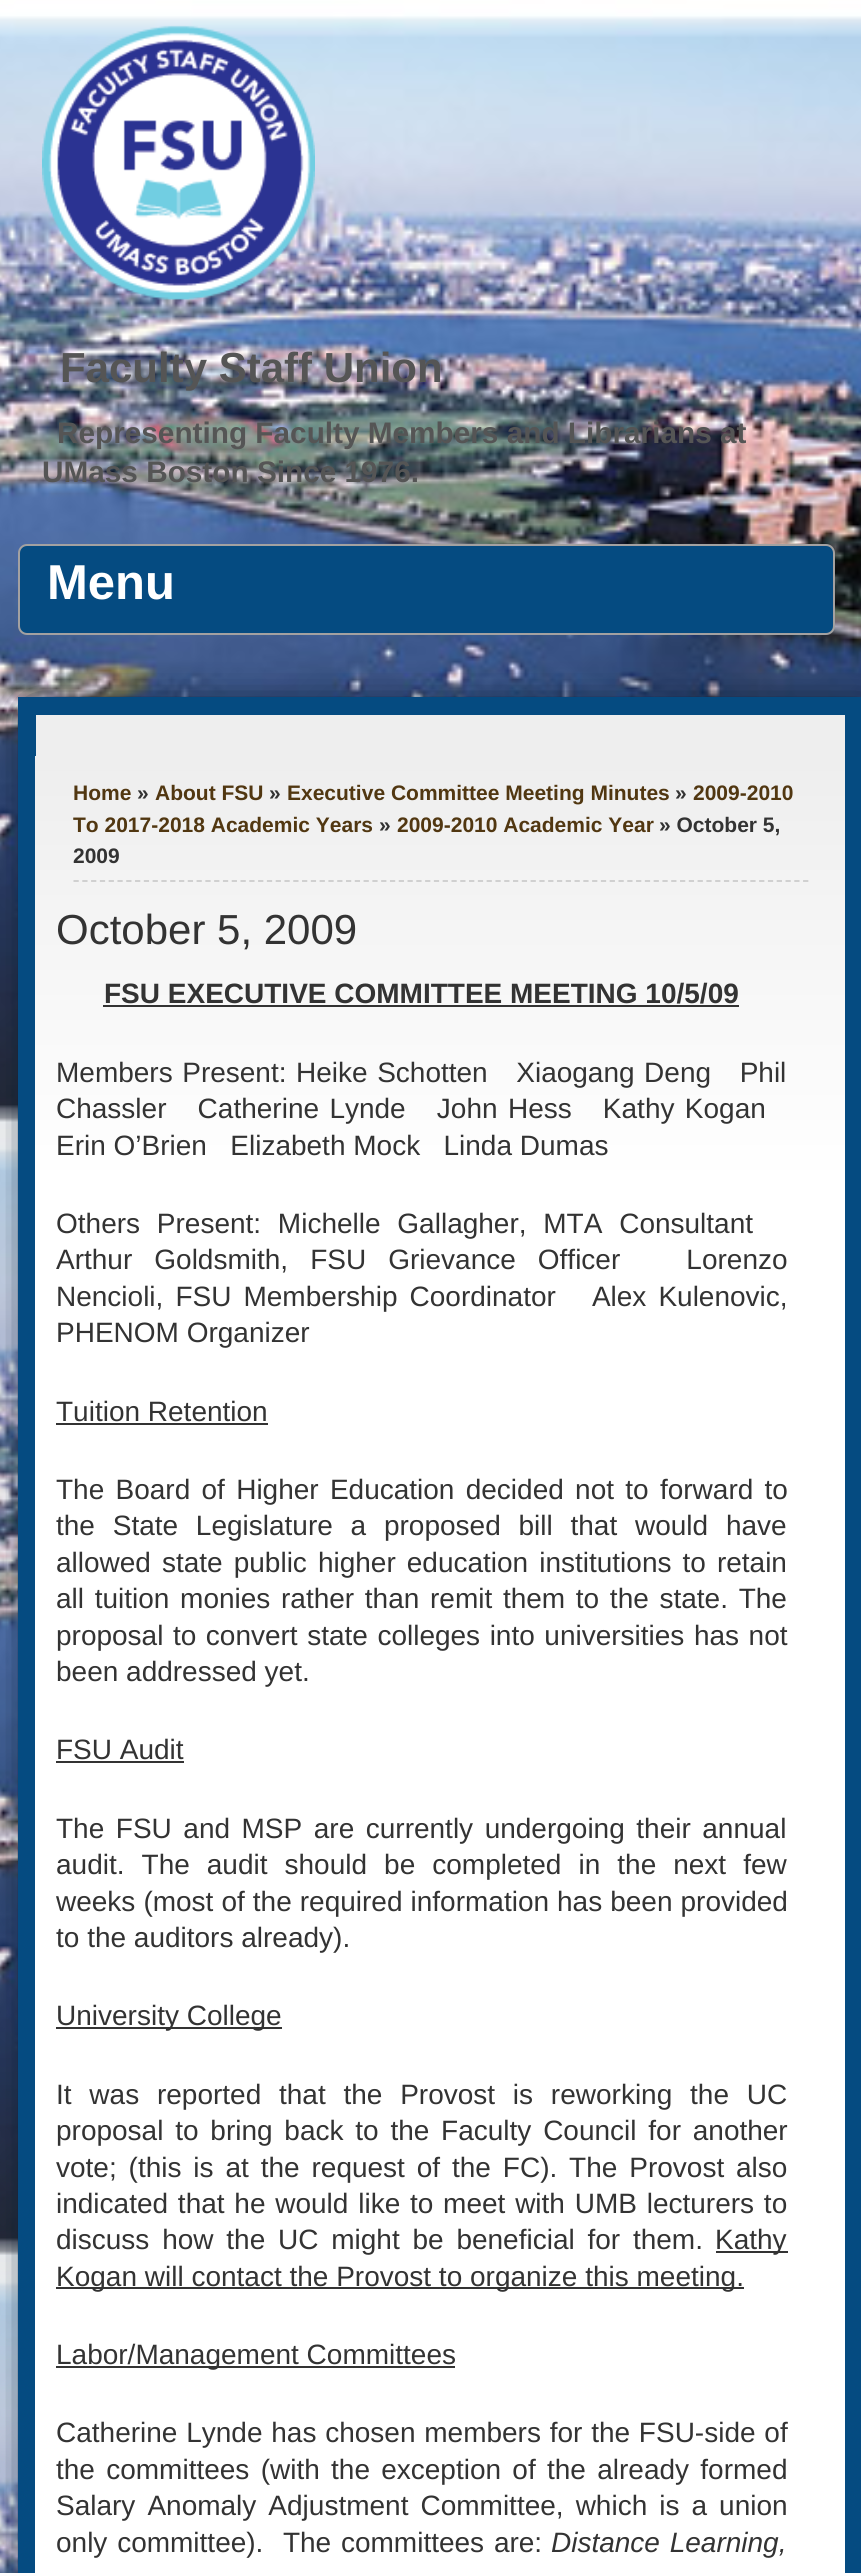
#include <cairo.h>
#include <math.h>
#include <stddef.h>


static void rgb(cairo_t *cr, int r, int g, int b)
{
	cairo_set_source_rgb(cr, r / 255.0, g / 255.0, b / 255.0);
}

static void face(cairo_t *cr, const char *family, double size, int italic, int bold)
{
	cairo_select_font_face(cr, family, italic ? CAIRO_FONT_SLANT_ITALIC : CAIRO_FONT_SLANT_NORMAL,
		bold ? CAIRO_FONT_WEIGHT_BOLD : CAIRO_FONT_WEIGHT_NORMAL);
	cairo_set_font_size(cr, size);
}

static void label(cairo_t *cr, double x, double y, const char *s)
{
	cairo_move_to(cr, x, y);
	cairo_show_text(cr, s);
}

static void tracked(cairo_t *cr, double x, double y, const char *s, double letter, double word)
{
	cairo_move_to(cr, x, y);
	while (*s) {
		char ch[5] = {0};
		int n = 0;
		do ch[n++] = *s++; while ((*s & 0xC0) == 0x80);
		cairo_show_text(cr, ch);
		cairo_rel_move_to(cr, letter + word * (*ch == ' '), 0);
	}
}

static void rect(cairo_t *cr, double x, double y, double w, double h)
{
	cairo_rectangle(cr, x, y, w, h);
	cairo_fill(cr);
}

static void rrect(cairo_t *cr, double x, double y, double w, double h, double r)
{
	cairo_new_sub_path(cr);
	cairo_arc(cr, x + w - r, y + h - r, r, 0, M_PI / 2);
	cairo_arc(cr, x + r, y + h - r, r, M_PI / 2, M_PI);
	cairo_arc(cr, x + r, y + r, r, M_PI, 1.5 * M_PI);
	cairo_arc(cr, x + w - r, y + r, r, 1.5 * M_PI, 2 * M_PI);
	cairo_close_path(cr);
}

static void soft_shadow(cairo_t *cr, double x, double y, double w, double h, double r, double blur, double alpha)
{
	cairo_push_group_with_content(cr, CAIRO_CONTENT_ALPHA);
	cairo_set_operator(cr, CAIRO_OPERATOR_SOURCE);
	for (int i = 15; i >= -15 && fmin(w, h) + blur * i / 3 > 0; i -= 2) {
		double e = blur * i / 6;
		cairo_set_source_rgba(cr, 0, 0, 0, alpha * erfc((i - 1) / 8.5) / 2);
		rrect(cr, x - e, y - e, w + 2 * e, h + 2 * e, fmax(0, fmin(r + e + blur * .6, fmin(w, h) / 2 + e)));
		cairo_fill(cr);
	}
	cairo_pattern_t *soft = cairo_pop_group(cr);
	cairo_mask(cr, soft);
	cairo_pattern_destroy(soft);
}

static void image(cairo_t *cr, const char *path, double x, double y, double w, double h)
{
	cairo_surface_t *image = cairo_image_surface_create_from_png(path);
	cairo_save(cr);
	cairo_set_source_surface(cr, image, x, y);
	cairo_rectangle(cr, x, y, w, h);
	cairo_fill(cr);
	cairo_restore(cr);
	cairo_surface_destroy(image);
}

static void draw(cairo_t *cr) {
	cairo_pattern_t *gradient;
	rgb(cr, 255, 255, 255);
	cairo_paint(cr);
	image(cr, "image0.png", 0, 0, 861, 2573);
	image(cr, "image1.png", 42, 25, 273, 275);
	face(cr, "Liberation Sans", 42, 0, 1);
	rgb(cr, 85, 85, 85);
	label(cr, 60, 382, "Faculty Staff Union");
	face(cr, "Liberation Sans", 29.75, 0, 1);
	label(cr, 57, 443, "Representing Faculty Members and Librarians at");
	label(cr, 42, 482, "UMass Boston Since 1976.");
	rgb(cr, 5, 75, 129);
	rrect(cr, 19, 545, 815, 89, 8);
	cairo_fill_preserve(cr);
	rgb(cr, 163, 161, 161);
	cairo_stroke(cr);
	face(cr, "Liberation Sans", 49, 0, 1);
	rgb(cr, 255, 255, 255);
	label(cr, 47, 599, "Menu");
	rgb(cr, 5, 27, 50);
	soft_shadow(cr, 26, 705, 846, 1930, 9, 17.5, 1);
	rgb(cr, 238, 238, 238);
	cairo_new_path(cr);
	cairo_move_to(cr, 27, 706);
	cairo_line_to(cr, 854, 706);
	cairo_line_to(cr, 854, 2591);
	cairo_line_to(cr, 27, 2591);
	cairo_close_path(cr);
	cairo_fill_preserve(cr);
	rgb(cr, 5, 75, 129);
	cairo_set_line_width(cr, 18);
	cairo_stroke(cr);
	gradient = cairo_pattern_create_linear(35, 756, 35, 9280);
	cairo_pattern_add_color_stop_rgba(gradient, 0, 0.933, 0.933, 0.933, 1);
	cairo_pattern_add_color_stop_rgba(gradient, 0.05, 1, 1, 1, 1);
	cairo_set_source(cr, gradient);
	cairo_pattern_destroy(gradient);
	rect(cr, 35, 756, 810, 1817);
	cairo_new_path(cr);
	cairo_move_to(cr, 73.5, 881);
	cairo_line_to(cr, 808.5, 881);
	rgb(cr, 204, 204, 204);
	cairo_set_line_width(cr, 1.8);
	cairo_set_dash(cr, (double[]){5.25, 3.54}, 2, 0);
	cairo_stroke(cr);
	face(cr, "Liberation Sans", 21, 0, 1);
	rgb(cr, 81, 55, 17);
	label(cr, 73, 800, "Home");
	rgb(cr, 51, 51, 51);
	label(cr, 137, 800, "»");
	rgb(cr, 81, 55, 17);
	label(cr, 155, 800, "About FSU");
	rgb(cr, 51, 51, 51);
	label(cr, 269, 800, "»");
	rgb(cr, 81, 55, 17);
	label(cr, 287, 800, "Executive Committee Meeting Minutes");
	rgb(cr, 51, 51, 51);
	label(cr, 675, 800, "»");
	rgb(cr, 81, 55, 17);
	label(cr, 693, 800, "2009-2010");
	label(cr, 73, 832, "To 2017-2018 Academic Years");
	rgb(cr, 51, 51, 51);
	label(cr, 379, 832, "»");
	rgb(cr, 81, 55, 17);
	label(cr, 397, 832, "2009-2010 Academic Year");
	rgb(cr, 51, 51, 51);
	label(cr, 659, 832, "» October 5,");
	label(cr, 73, 863, "2009");
	face(cr, "Liberation Sans", 42, 0, 0);
	label(cr, 56, 944, "October 5, 2009");
	face(cr, "Liberation Sans", 28, 0, 1);
	label(cr, 104, 1003, "FSU EXECUTIVE COMMITTEE MEETING 10/5/09");
	rect(cr, 103, 1005, 636, 2);
	face(cr, "Liberation Sans", 28, 0, 0);
	tracked(cr, 56, 1082, "Members Present: Heike Schotten   Xiaogang Deng   Phil", 0, 1.75);
	tracked(cr, 56, 1118, "Chassler   Catherine Lynde   John Hess   Kathy Kogan", 0, 2.6);
	label(cr, 56, 1155, "Erin O’Brien   Elizabeth Mock   Linda Dumas");
	tracked(cr, 56, 1233, "Others Present: Michelle Gallagher, MTA Consultant", 0, 9);
	tracked(cr, 56, 1269, "Arthur Goldsmith, FSU Grievance Officer   Lorenzo", 0, 14.25);
	tracked(cr, 56, 1306, "Nencioli, FSU Membership Coordinator   Alex Kulenovic,", 0, 4.25);
	label(cr, 56, 1342, "PHENOM Organizer");
	label(cr, 56, 1421, "Tuition Retention");
	rect(cr, 56, 1423, 212, 2);
	tracked(cr, 56, 1499, "The Board of Higher Education decided not to forward to", 0, 3.5);
	tracked(cr, 56, 1535, "the State Legislature a proposed bill that would have", 0, 10);
	tracked(cr, 56, 1572, "allowed state public higher education institutions to retain", 0, 3.25);
	tracked(cr, 56, 1608, "all tuition monies rather than remit them to the state. The", 0, 2.9);
	tracked(cr, 56, 1645, "proposal to convert state colleges into universities has not", 0, 1.75);
	label(cr, 56, 1681, "been addressed yet.");
	label(cr, 56, 1759, "FSU Audit");
	rect(cr, 56, 1761, 128, 2);
	tracked(cr, 56, 1838, "The FSU and MSP are currently undergoing their annual", 0, 3.75);
	tracked(cr, 56, 1874, "audit. The audit should be completed in the next few", 0, 9.25);
	tracked(cr, 56, 1911, "weeks (most of the required information has been provided", 0, 0.25);
	label(cr, 56, 1947, "to the auditors already).");
	rect(cr, 56, 2027, 226, 2);
	label(cr, 56, 2025, "University College");
	tracked(cr, 56, 2104, "It was reported that the Provost is reworking the UC", 0, 10);
	tracked(cr, 56, 2140, "proposal to bring back to the Faculty Council for another", 0, 4);
	tracked(cr, 56, 2177, "vote; (this is at the request of the FC). The Provost also", 0, 4.1);
	tracked(cr, 56, 2213, "indicated that he would like to meet with UMB lecturers to", 0, 2);
	tracked(cr, 56, 2249, "discuss how the UC might be beneficial for them.", 0, 5);
	rect(cr, 716, 2251, 72, 2);
	label(cr, 715, 2249, "Kathy");
	rect(cr, 56, 2287, 688, 2);
	label(cr, 56, 2286, "Kogan will contact the Provost to organize this meeting.");
	rect(cr, 56, 2366, 399, 2);
	label(cr, 56, 2364, "Labor/Management Committees");
	tracked(cr, 56, 2442, "Catherine Lynde has chosen members for the FSU-side of", 0, 1);
	tracked(cr, 56, 2479, "the committees (with the exception of the already formed", 0, 3.5);
	tracked(cr, 56, 2515, "Salary Anomaly Adjustment Committee, which is a union", 0, 4.25);
	tracked(cr, 56, 2552, "only committee).  The committees are:", 0, 2);
	face(cr, "Liberation Sans", 28, 1, 0);
	tracked(cr, 551, 2552, "Distance Learning,", 0, 2);
}

int main(void) {
	cairo_surface_t *surface = cairo_image_surface_create(CAIRO_FORMAT_RGB24, 861, 2573);
	cairo_t *cr = cairo_create(surface);
	cairo_font_options_t *options = cairo_font_options_create();
	cairo_font_options_set_hint_metrics(options, CAIRO_HINT_METRICS_OFF);
	cairo_font_options_set_hint_style(options, CAIRO_HINT_STYLE_NONE);
	cairo_set_font_options(cr, options);
	cairo_set_miter_limit(cr, 4);
	draw(cr);
	cairo_surface_write_to_png(surface, "render.png");
	cairo_font_options_destroy(options);
	cairo_destroy(cr);
	cairo_surface_destroy(surface);
	return 0;
}
